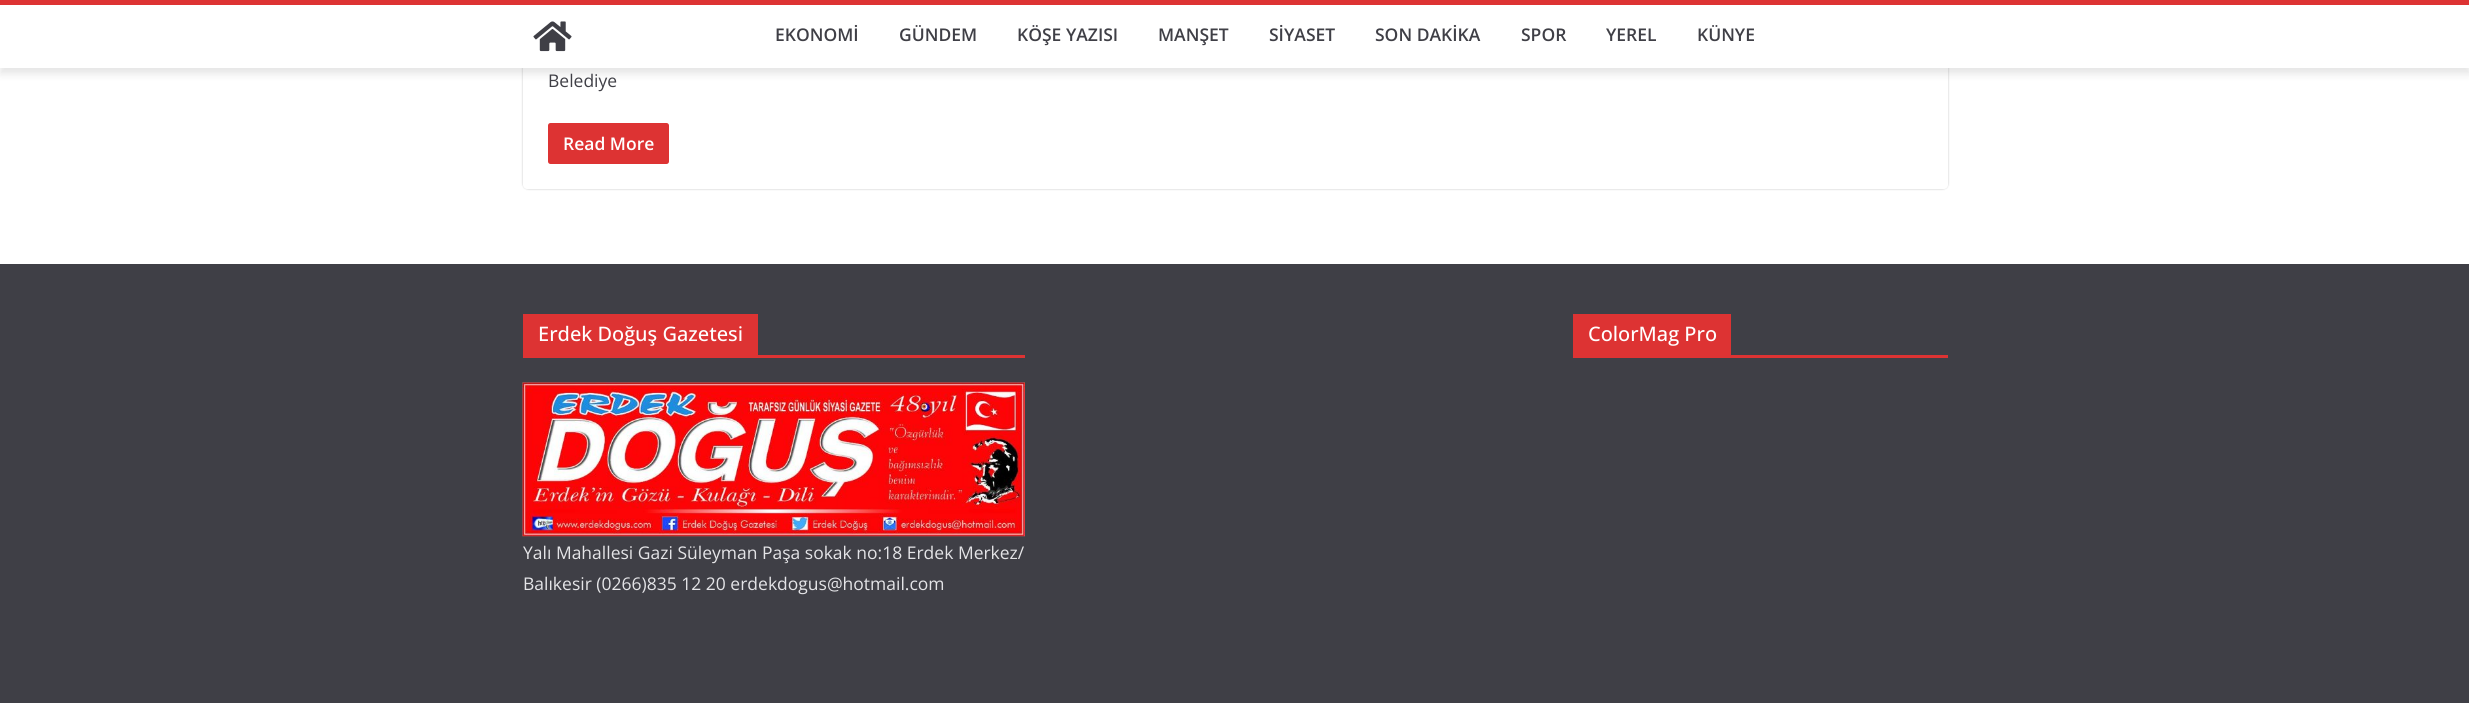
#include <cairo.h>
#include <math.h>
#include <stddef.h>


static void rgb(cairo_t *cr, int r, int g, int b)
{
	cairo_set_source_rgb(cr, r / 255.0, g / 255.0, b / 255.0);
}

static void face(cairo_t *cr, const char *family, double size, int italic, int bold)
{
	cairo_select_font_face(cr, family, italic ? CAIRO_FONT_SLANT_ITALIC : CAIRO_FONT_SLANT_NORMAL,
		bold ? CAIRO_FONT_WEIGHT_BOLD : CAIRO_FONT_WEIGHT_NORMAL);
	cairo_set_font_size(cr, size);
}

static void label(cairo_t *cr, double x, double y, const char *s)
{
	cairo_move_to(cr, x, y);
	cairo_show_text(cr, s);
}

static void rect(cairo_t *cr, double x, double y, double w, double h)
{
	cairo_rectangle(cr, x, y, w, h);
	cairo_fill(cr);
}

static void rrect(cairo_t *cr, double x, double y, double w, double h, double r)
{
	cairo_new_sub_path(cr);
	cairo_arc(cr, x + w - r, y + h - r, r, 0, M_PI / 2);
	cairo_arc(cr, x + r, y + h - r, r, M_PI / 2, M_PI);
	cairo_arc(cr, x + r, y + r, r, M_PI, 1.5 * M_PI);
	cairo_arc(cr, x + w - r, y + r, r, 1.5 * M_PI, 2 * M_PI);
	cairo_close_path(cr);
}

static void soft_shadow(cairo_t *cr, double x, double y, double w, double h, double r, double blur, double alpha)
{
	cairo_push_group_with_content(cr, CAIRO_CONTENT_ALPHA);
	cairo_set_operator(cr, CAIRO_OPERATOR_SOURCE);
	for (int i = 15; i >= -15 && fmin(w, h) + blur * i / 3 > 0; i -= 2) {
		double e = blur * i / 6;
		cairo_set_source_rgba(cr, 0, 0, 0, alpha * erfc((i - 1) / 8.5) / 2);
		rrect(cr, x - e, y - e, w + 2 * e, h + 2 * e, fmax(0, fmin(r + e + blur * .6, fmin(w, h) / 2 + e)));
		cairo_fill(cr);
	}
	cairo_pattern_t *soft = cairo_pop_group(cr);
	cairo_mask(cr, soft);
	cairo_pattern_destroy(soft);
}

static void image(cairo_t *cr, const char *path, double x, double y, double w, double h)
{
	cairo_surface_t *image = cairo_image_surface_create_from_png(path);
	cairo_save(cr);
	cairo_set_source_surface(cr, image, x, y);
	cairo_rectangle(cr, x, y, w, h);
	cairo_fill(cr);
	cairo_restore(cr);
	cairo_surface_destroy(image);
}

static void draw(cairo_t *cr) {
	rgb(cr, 255, 255, 255);
	cairo_paint(cr);
	rgb(cr, 0, 0, 0);
	soft_shadow(cr, 0, 6, 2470, 68, 0, 4, 0.1);
	cairo_save(cr);
	cairo_set_fill_rule(cr, CAIRO_FILL_RULE_EVEN_ODD);
	cairo_new_path(cr);
	cairo_move_to(cr, 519, 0);
	cairo_line_to(cr, 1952, 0);
	cairo_line_to(cr, 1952, 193);
	cairo_line_to(cr, 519, 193);
	cairo_close_path(cr);
	cairo_move_to(cr, 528, -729);
	cairo_line_to(cr, 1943, -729);
	cairo_curve_to(cr, 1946, -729, 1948, -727, 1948, -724);
	cairo_line_to(cr, 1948, 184);
	cairo_curve_to(cr, 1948, 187, 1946, 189, 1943, 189);
	cairo_line_to(cr, 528, 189);
	cairo_curve_to(cr, 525, 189, 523, 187, 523, 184);
	cairo_line_to(cr, 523, -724);
	cairo_curve_to(cr, 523, -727, 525, -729, 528, -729);
	cairo_close_path(cr);
	cairo_clip(cr);
	soft_shadow(cr, 523, -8, 1425, 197, 5, 1, 0.24);
	cairo_restore(cr);
	rgb(cr, 255, 255, 255);
	rect(cr, 0, 5, 2469, 63);
	rgb(cr, 221, 51, 51);
	rect(cr, 0, 0, 2469, 5);
	image(cr, "image0.png", 533, 21, 39, 31);
	face(cr, "Open Sans SemiBold", 17.5, 0, 0);
	rgb(cr, 63, 63, 70);
	label(cr, 775, 41, "EKONOMİ");
	label(cr, 899, 41, "GÜNDEM");
	label(cr, 1017, 41, "KÖŞE YAZISI");
	label(cr, 1158, 41, "MANŞET");
	label(cr, 1269, 41, "SİYASET");
	label(cr, 1375, 41, "SON DAKİKA");
	label(cr, 1521, 41, "SPOR");
	label(cr, 1606, 41, "YEREL");
	label(cr, 1697, 41, "KÜNYE");
	face(cr, "Open Sans", 17.5, 0, 0);
	label(cr, 548, 87, "Belediye");
	rgb(cr, 221, 51, 51);
	rrect(cr, 548, 123, 121, 41, 2.5);
	cairo_fill(cr);
	face(cr, "Open Sans SemiBold", 17.5, 0, 0);
	rgb(cr, 255, 255, 255);
	label(cr, 563, 150, "Read More");
	rgb(cr, 63, 63, 70);
	rect(cr, 0, 264, 2469, 439);
	rgb(cr, 221, 51, 51);
	rect(cr, 523, 355, 502, 3);
	rect(cr, 523, 314, 235, 41);
	face(cr, "Open Sans Medium", 20, 0, 0);
	rgb(cr, 255, 255, 255);
	label(cr, 538, 341, "Erdek Doğuş Gazetesi");
	image(cr, "image1.png", 522, 382, 503, 155);
	face(cr, "Open Sans", 17.5, 0, 0);
	rgb(cr, 228, 228, 231);
	label(cr, 523, 559, "Yalı Mahallesi Gazi Süleyman Paşa sokak no:18 Erdek Merkez/");
	label(cr, 523, 590, "Balıkesir (0266)835 12 20 erdekdogus@hotmail.com");
	rgb(cr, 221, 51, 51);
	rect(cr, 1573, 355, 375, 3);
	rect(cr, 1573, 314, 158, 41);
	face(cr, "Open Sans Medium", 20, 0, 0);
	rgb(cr, 255, 255, 255);
	label(cr, 1588, 341, "ColorMag Pro");
}

int main(void) {
	cairo_surface_t *surface = cairo_image_surface_create(CAIRO_FORMAT_RGB24, 2469, 703);
	cairo_t *cr = cairo_create(surface);
	cairo_font_options_t *options = cairo_font_options_create();
	cairo_font_options_set_hint_metrics(options, CAIRO_HINT_METRICS_OFF);
	cairo_font_options_set_hint_style(options, CAIRO_HINT_STYLE_NONE);
	cairo_set_font_options(cr, options);
	cairo_set_miter_limit(cr, 4);
	draw(cr);
	cairo_surface_write_to_png(surface, "render.png");
	cairo_font_options_destroy(options);
	cairo_destroy(cr);
	cairo_surface_destroy(surface);
	return 0;
}
